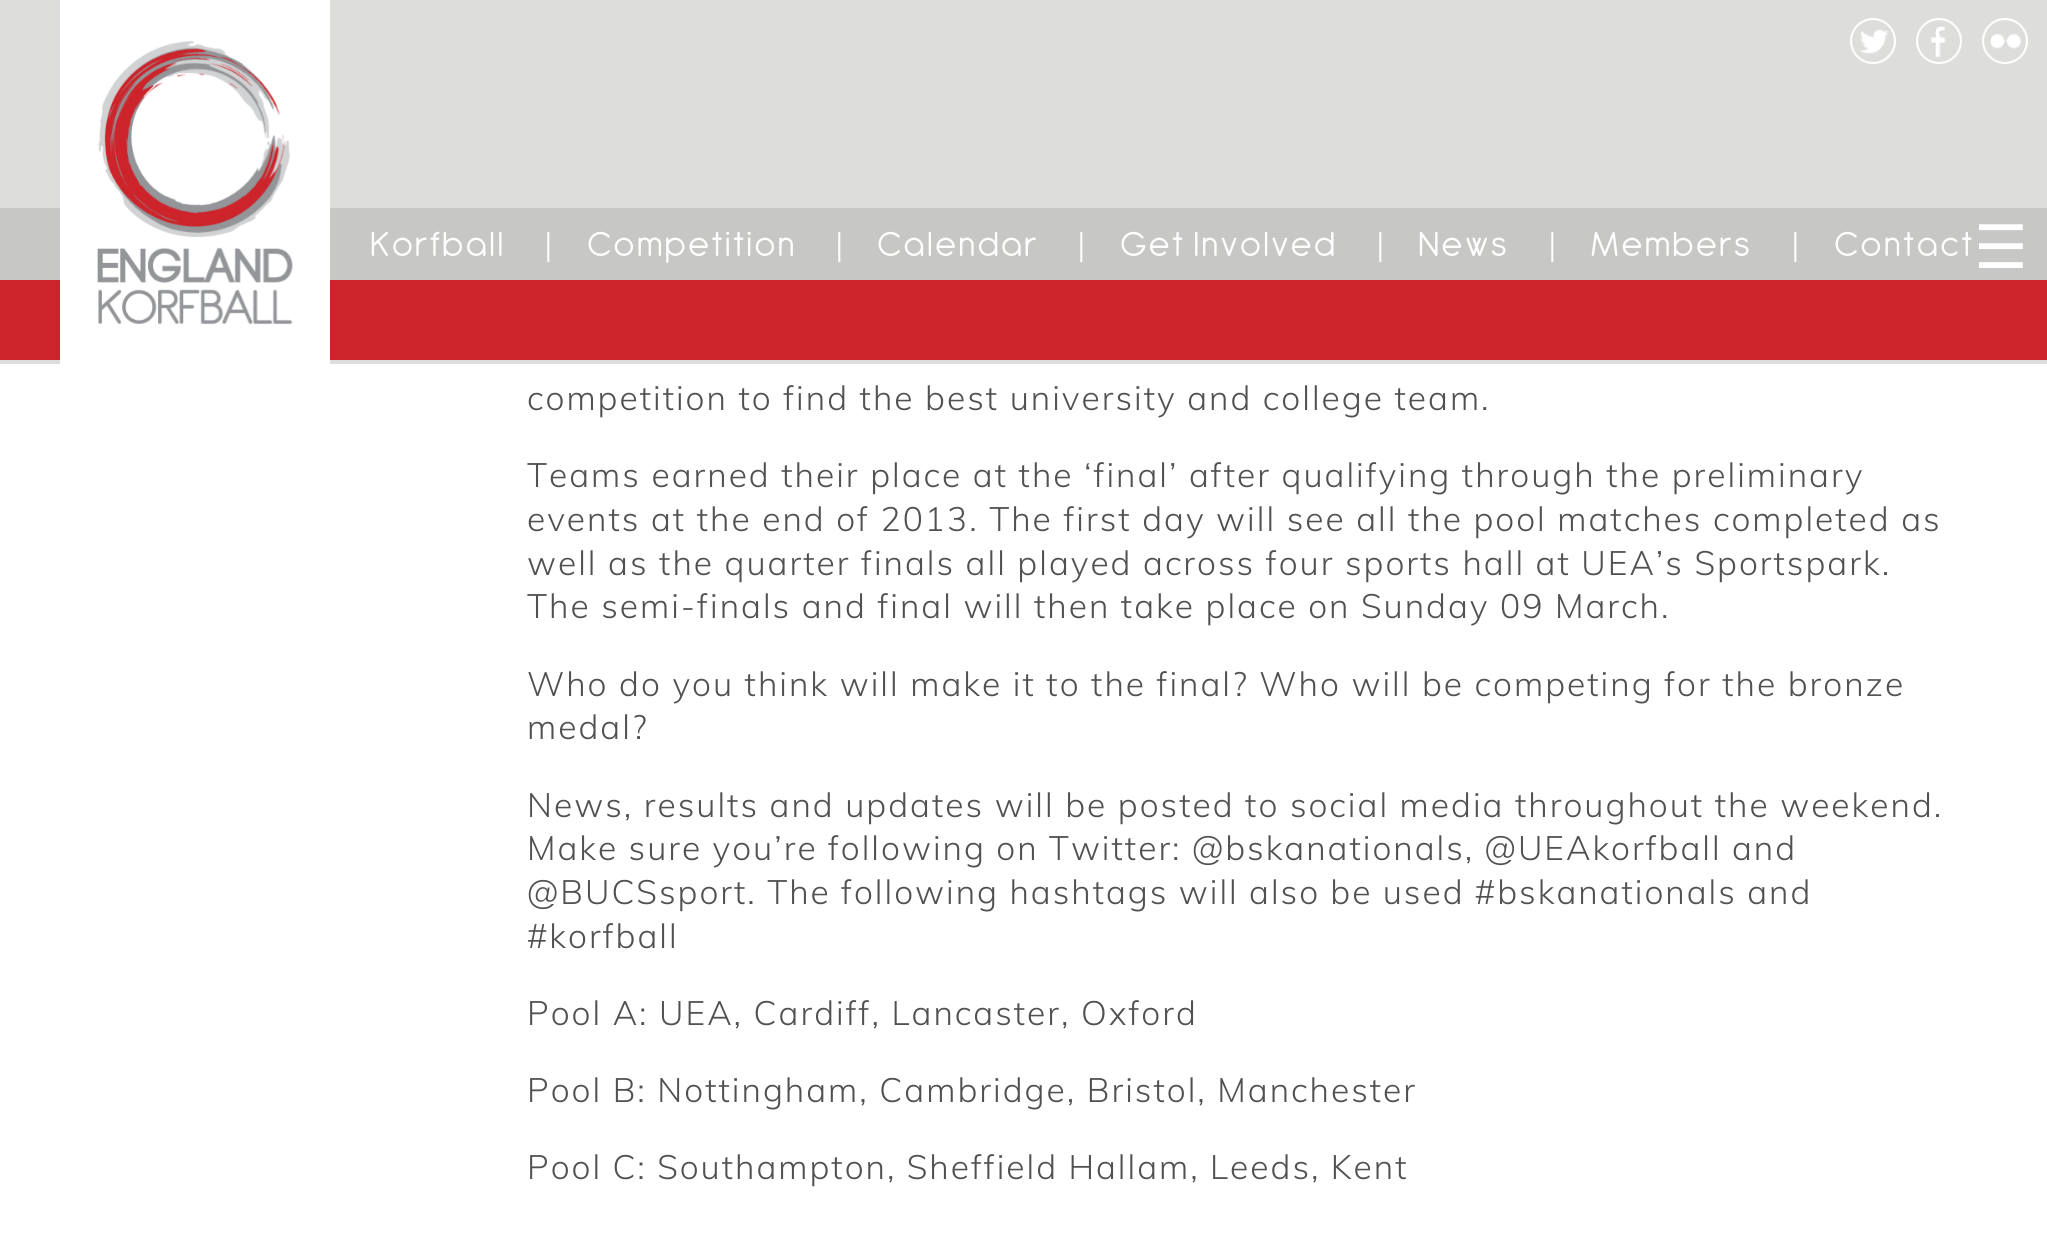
#include <cairo.h>
#include <math.h>
#include <stddef.h>


static void rgb(cairo_t *cr, int r, int g, int b)
{
	cairo_set_source_rgb(cr, r / 255.0, g / 255.0, b / 255.0);
}

static void face(cairo_t *cr, const char *family, double size, int italic, int bold)
{
	cairo_select_font_face(cr, family, italic ? CAIRO_FONT_SLANT_ITALIC : CAIRO_FONT_SLANT_NORMAL,
		bold ? CAIRO_FONT_WEIGHT_BOLD : CAIRO_FONT_WEIGHT_NORMAL);
	cairo_set_font_size(cr, size);
}

static void label(cairo_t *cr, double x, double y, const char *s)
{
	cairo_move_to(cr, x, y);
	cairo_show_text(cr, s);
}

static void tracked(cairo_t *cr, double x, double y, const char *s, double letter, double word)
{
	cairo_move_to(cr, x, y);
	while (*s) {
		char ch[5] = {0};
		int n = 0;
		do ch[n++] = *s++; while ((*s & 0xC0) == 0x80);
		cairo_show_text(cr, ch);
		cairo_rel_move_to(cr, letter + word * (*ch == ' '), 0);
	}
}

static void rect(cairo_t *cr, double x, double y, double w, double h)
{
	cairo_rectangle(cr, x, y, w, h);
	cairo_fill(cr);
}

static void image(cairo_t *cr, const char *path, double x, double y, double w, double h)
{
	cairo_surface_t *image = cairo_image_surface_create_from_png(path);
	cairo_save(cr);
	cairo_set_source_surface(cr, image, x, y);
	cairo_rectangle(cr, x, y, w, h);
	cairo_fill(cr);
	cairo_restore(cr);
	cairo_surface_destroy(image);
}

static void draw(cairo_t *cr) {
	rgb(cr, 255, 255, 255);
	cairo_paint(cr);
	rgb(cr, 221, 221, 220);
	rect(cr, 0, 0, 2047, 364);
	rgb(cr, 199, 199, 198);
	rect(cr, 0, 208, 2047, 72);
	rgb(cr, 205, 36, 43);
	rect(cr, 0, 280, 2047, 80);
	rgb(cr, 255, 255, 255);
	rect(cr, 60, 0, 270, 364);
	image(cr, "image0.png", 97, 41, 196, 284);
	image(cr, "image1.png", 1850, 18, 46, 46);
	image(cr, "image2.png", 1916, 18, 46, 46);
	image(cr, "image3.png", 1982, 18, 46, 46);
	face(cr, "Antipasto", 38, 0, 0);
	tracked(cr, 370, 256, "Korfball", 2, 0);
	face(cr, "Muli Light", 33.6, 0, 0);
	label(cr, 544, 256, "|");
	face(cr, "Antipasto", 38, 0, 0);
	tracked(cr, 587, 256, "Competition", 2, 0);
	face(cr, "Muli Light", 33.6, 0, 0);
	label(cr, 835, 256, "|");
	face(cr, "Antipasto", 38, 0, 0);
	tracked(cr, 877, 256, "Calendar", 2, 0);
	face(cr, "Muli Light", 33.6, 0, 0);
	label(cr, 1077, 256, "|");
	face(cr, "Antipasto", 38, 0, 0);
	tracked(cr, 1120, 256, "Get Involved", 2, 0);
	face(cr, "Muli Light", 33.6, 0, 0);
	label(cr, 1376, 256, "|");
	face(cr, "Antipasto", 38, 0, 0);
	tracked(cr, 1418, 256, "News", 2, 0);
	face(cr, "Muli Light", 33.6, 0, 0);
	label(cr, 1548, 256, "|");
	face(cr, "Antipasto", 38, 0, 0);
	tracked(cr, 1590, 256, "Members", 2, 0);
	face(cr, "Muli Light", 33.6, 0, 0);
	label(cr, 1791, 256, "|");
	face(cr, "Antipasto", 38, 0, 0);
	tracked(cr, 1834, 256, "Contact", 2, 0);
	face(cr, "DejaVu Sans", 60, 0, 0);
	label(cr, 1974, 268, "☰");
	face(cr, "Muli Light", 33.6, 0, 0);
	rgb(cr, 81, 81, 81);
	tracked(cr, 527, 410, "competition to find the best university and college team.", 2, 0);
	tracked(cr, 527, 487, "Teams earned their place at the ‘final’ after qualifying through the preliminary", 2, 0);
	tracked(cr, 527, 531, "events at the end of 2013. The first day will see all the pool matches completed as", 2, 0);
	tracked(cr, 527, 575, "well as the quarter finals all played across four sports hall at UEA’s Sportspark.", 2, 0);
	tracked(cr, 527, 618, "The semi-finals and final will then take place on Sunday 09 March.", 2, 0);
	tracked(cr, 527, 696, "Who do you think will make it to the final? Who will be competing for the bronze", 2, 0);
	tracked(cr, 527, 739, "medal?", 2, 0);
	tracked(cr, 527, 817, "News, results and updates will be posted to social media throughout the weekend.", 2, 0);
	tracked(cr, 527, 860, "Make sure you’re following on Twitter: @bskanationals, @UEAkorfball and", 2, -0.25);
	tracked(cr, 527, 904, "@BUCSsport. The following hashtags will also be used #bskanationals and", 2, -0.25);
	tracked(cr, 527, 948, "#korfball", 2, 0);
	tracked(cr, 527, 1025, "Pool A: UEA, Cardiff, Lancaster, Oxford", 2, 0);
	tracked(cr, 527, 1102, "Pool B: Nottingham, Cambridge, Bristol, Manchester", 2, 0);
	tracked(cr, 527, 1179, "Pool C: Southampton, Sheffield Hallam, Leeds, Kent", 2, -0.25);
}

int main(void) {
	cairo_surface_t *surface = cairo_image_surface_create(CAIRO_FORMAT_RGB24, 2047, 1238);
	cairo_t *cr = cairo_create(surface);
	cairo_font_options_t *options = cairo_font_options_create();
	cairo_font_options_set_hint_metrics(options, CAIRO_HINT_METRICS_OFF);
	cairo_font_options_set_hint_style(options, CAIRO_HINT_STYLE_NONE);
	cairo_set_font_options(cr, options);
	cairo_set_miter_limit(cr, 4);
	draw(cr);
	cairo_surface_write_to_png(surface, "render.png");
	cairo_font_options_destroy(options);
	cairo_destroy(cr);
	cairo_surface_destroy(surface);
	return 0;
}
